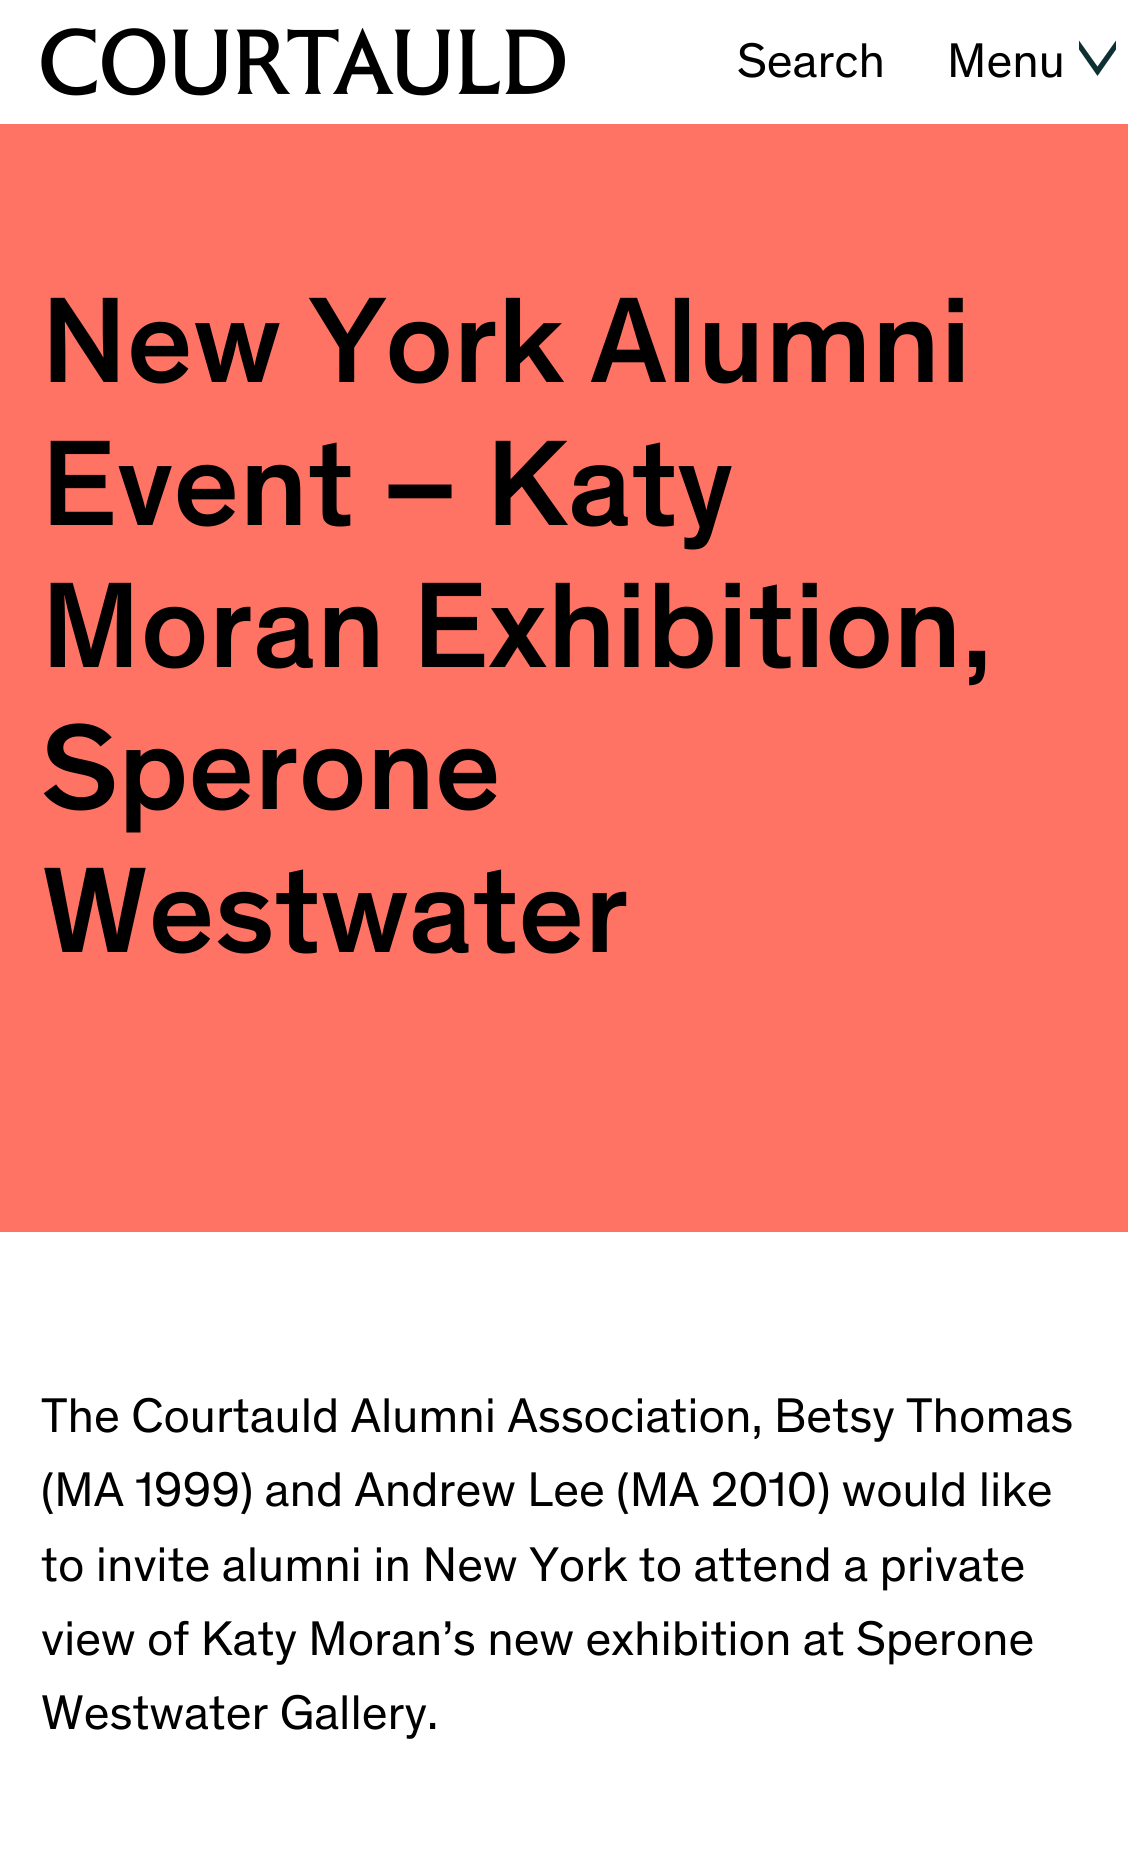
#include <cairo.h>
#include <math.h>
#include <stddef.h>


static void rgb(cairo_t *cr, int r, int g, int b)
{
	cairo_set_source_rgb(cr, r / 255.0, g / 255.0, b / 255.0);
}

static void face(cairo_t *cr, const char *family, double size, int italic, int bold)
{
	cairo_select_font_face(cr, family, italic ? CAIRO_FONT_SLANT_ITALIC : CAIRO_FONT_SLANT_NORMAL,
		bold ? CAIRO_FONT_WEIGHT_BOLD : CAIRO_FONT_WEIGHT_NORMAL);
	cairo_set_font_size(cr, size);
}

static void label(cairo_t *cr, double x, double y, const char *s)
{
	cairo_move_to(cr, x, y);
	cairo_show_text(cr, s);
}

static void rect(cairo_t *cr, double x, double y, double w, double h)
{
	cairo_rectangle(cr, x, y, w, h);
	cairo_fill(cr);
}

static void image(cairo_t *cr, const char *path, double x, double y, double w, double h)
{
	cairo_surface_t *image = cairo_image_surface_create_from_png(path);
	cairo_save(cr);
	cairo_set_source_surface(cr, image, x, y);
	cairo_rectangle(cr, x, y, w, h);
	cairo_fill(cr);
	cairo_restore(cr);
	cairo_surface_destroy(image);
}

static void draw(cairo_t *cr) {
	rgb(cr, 255, 255, 255);
	cairo_paint(cr);
	image(cr, "image0.png", 41, 28, 524, 68);
	face(cr, "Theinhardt", 49.5, 0, 0);
	rgb(cr, 0, 0, 0);
	label(cr, 737, 77, "Search");
	label(cr, 947, 77, "Menu");
	rgb(cr, 14, 47, 52);
	cairo_new_path(cr);
	cairo_move_to(cr, 1116, 40.5);
	cairo_line_to(cr, 1097.5, 66.5);
	cairo_line_to(cr, 1079, 40.5);
	cairo_line_to(cr, 1079, 49.5);
	cairo_line_to(cr, 1097.5, 76);
	cairo_line_to(cr, 1116, 49.5);
	cairo_close_path(cr);
	cairo_fill(cr);
	rgb(cr, 255, 115, 100);
	rect(cr, 0, 124, 1128, 1108);
	face(cr, "Theinhardt Medium", 123.75, 0, 0);
	rgb(cr, 0, 0, 0);
	label(cr, 41, 382, "New York Alumni");
	label(cr, 41, 525, "Event – Katy");
	label(cr, 41, 667, "Moran Exhibition,");
	label(cr, 41, 809, "Sperone");
	label(cr, 41, 952, "Westwater");
	face(cr, "Theinhardt", 49.5, 0, 0);
	label(cr, 41, 1432, "The Courtauld Alumni Association, Betsy Thomas");
	label(cr, 41, 1506, "(MA 1999) and Andrew Lee (MA 2010) would like");
	label(cr, 41, 1581, "to invite alumni in New York to attend a private");
	label(cr, 41, 1655, "view of Katy Moran’s new exhibition at Sperone");
	label(cr, 41, 1729, "Westwater Gallery.");
}

int main(void) {
	cairo_surface_t *surface = cairo_image_surface_create(CAIRO_FORMAT_RGB24, 1128, 1856);
	cairo_t *cr = cairo_create(surface);
	cairo_font_options_t *options = cairo_font_options_create();
	cairo_font_options_set_hint_metrics(options, CAIRO_HINT_METRICS_OFF);
	cairo_font_options_set_hint_style(options, CAIRO_HINT_STYLE_NONE);
	cairo_set_font_options(cr, options);
	cairo_set_miter_limit(cr, 4);
	draw(cr);
	cairo_surface_write_to_png(surface, "render.png");
	cairo_font_options_destroy(options);
	cairo_destroy(cr);
	cairo_surface_destroy(surface);
	return 0;
}
